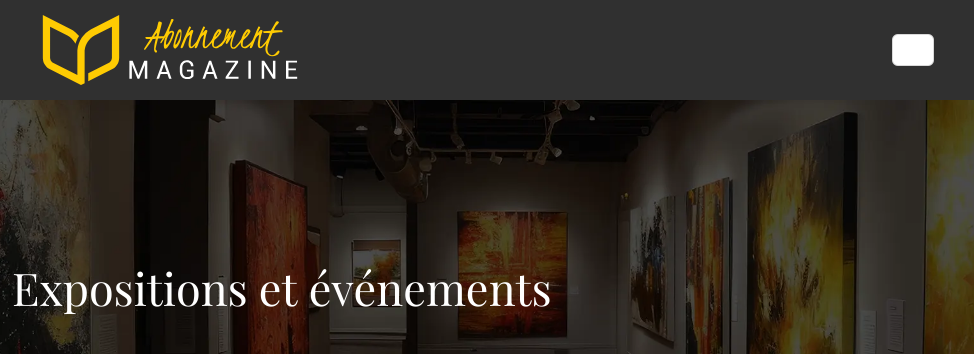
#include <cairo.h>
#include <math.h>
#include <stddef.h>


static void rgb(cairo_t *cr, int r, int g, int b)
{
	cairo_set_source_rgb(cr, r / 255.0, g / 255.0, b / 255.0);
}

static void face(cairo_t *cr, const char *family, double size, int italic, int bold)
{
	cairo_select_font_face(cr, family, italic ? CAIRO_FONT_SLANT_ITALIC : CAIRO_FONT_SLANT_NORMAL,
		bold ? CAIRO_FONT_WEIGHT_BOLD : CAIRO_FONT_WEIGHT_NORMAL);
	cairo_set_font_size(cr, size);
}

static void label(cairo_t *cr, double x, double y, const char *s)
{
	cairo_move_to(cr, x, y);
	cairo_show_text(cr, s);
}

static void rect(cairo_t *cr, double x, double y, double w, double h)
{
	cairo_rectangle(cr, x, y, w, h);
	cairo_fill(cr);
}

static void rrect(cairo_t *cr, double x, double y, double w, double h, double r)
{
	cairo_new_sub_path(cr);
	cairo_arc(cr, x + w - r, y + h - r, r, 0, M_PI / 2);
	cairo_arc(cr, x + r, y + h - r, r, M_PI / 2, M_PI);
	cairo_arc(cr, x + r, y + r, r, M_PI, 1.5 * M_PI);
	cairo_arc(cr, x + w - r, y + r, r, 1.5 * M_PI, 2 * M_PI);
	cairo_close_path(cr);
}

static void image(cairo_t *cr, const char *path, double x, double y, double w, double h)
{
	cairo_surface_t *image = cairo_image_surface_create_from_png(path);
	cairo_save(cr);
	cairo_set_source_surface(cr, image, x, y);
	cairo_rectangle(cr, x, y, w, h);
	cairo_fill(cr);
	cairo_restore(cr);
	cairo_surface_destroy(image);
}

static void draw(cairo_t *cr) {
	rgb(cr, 255, 255, 255);
	cairo_paint(cr);
	rgb(cr, 48, 48, 48);
	rect(cr, 0, 0, 974, 100);
	image(cr, "image0.png", 42, 15, 256, 70);
	rgb(cr, 255, 255, 255);
	rrect(cr, 892, 34, 42, 32, 6);
	cairo_fill(cr);
	rrect(cr, 892.5, 34.5, 41, 31, 5.5);
	cairo_set_source_rgba(cr, 0, 0, 0, 0.15);
	cairo_set_line_width(cr, 1);
	cairo_stroke(cr);
	image(cr, "image1.png", 0, 100, 974, 254);
	face(cr, "Playfair Display", 45, 0, 0);
	rgb(cr, 255, 255, 255);
	label(cr, 12, 306, "Expositions et événements");
}

int main(void) {
	cairo_surface_t *surface = cairo_image_surface_create(CAIRO_FORMAT_RGB24, 974, 354);
	cairo_t *cr = cairo_create(surface);
	cairo_font_options_t *options = cairo_font_options_create();
	cairo_font_options_set_hint_metrics(options, CAIRO_HINT_METRICS_OFF);
	cairo_font_options_set_hint_style(options, CAIRO_HINT_STYLE_NONE);
	cairo_set_font_options(cr, options);
	cairo_set_miter_limit(cr, 4);
	draw(cr);
	cairo_surface_write_to_png(surface, "render.png");
	cairo_font_options_destroy(options);
	cairo_destroy(cr);
	cairo_surface_destroy(surface);
	return 0;
}
